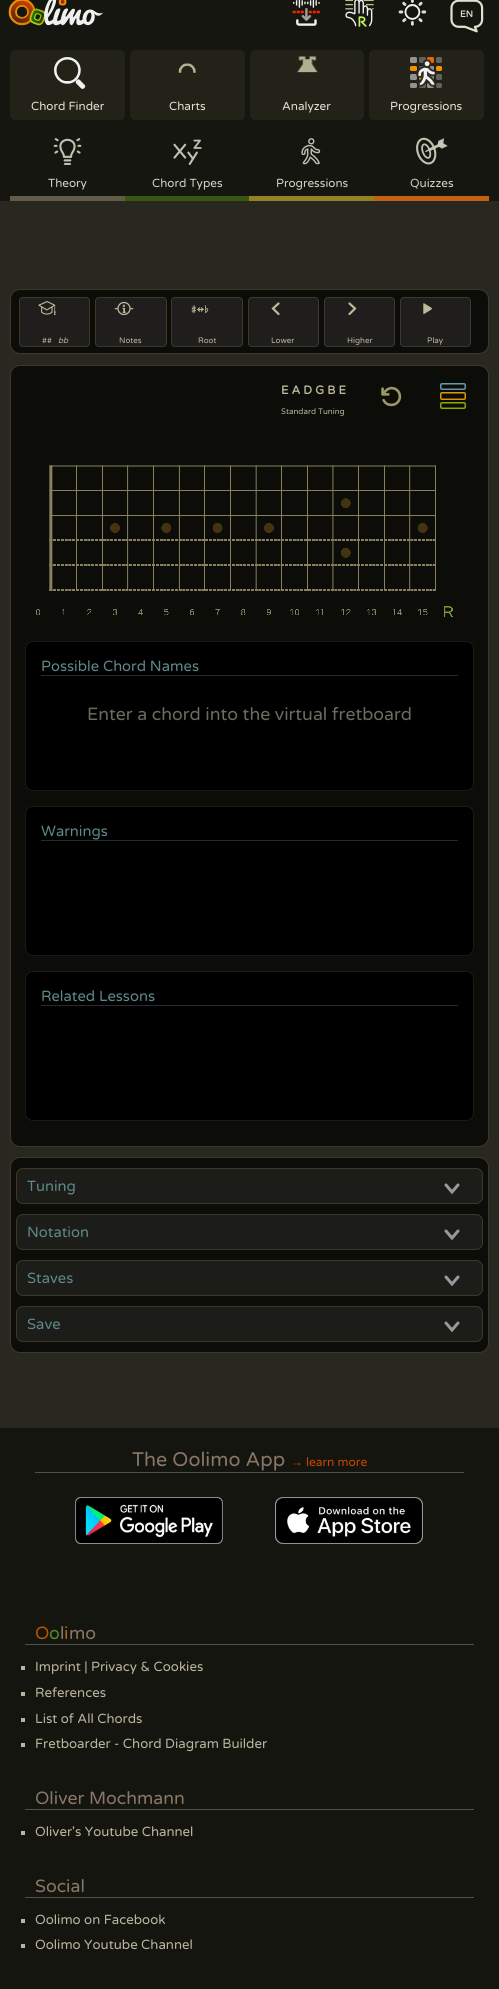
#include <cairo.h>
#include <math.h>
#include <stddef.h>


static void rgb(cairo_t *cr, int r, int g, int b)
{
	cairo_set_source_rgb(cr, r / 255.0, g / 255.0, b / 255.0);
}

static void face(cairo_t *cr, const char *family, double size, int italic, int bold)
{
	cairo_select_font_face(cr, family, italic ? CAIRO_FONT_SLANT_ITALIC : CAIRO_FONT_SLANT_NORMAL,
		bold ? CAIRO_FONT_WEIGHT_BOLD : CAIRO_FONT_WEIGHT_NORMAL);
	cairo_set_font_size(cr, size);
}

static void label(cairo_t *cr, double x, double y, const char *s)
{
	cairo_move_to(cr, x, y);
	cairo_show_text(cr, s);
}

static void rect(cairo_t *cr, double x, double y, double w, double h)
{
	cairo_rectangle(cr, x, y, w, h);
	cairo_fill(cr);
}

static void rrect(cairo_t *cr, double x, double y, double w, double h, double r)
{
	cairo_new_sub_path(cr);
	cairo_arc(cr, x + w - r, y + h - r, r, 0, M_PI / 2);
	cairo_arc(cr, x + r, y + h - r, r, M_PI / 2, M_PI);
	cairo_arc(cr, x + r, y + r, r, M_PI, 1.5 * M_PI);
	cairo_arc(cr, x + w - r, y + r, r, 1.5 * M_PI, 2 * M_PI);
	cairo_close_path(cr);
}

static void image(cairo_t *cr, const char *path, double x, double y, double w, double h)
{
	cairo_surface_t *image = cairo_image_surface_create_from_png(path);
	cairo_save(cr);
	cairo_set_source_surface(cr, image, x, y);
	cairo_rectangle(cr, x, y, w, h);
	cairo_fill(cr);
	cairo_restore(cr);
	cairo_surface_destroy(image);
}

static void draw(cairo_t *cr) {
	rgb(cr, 41, 40, 32);
	cairo_paint(cr);
	rgb(cr, 22, 22, 17);
	rect(cr, 0, 0, 499, 201);
	image(cr, "image0.png", 8, 0, 96, 26);
	image(cr, "image1.png", 292, 0, 28, 26);
	image(cr, "image2.png", 345, 0, 29, 27);
	image(cr, "image3.png", 398, 0, 29, 26);
	image(cr, "image4.png", 450, 0, 34, 33);
	face(cr, "Varela Round", 9, 0, 1);
	rgb(cr, 226, 226, 210);
	label(cr, 460, 17, "EN");
	rgb(cr, 34, 34, 25);
	rrect(cr, 10, 50, 115, 70, 5);
	cairo_fill(cr);
	image(cr, "image5.png", 54, 57, 32, 32);
	face(cr, "Varela Round", 11.75, 0, 0);
	rgb(cr, 226, 226, 210);
	label(cr, 31, 110, "Chord Finder");
	rgb(cr, 34, 34, 25);
	rrect(cr, 130, 50, 115, 70, 5);
	cairo_fill(cr);
	image(cr, "image6.png", 178, 63, 18, 10);
	rgb(cr, 226, 226, 210);
	label(cr, 169, 110, "Charts");
	rgb(cr, 34, 34, 25);
	rrect(cr, 250, 50, 114, 70, 5);
	cairo_fill(cr);
	image(cr, "image7.png", 297, 56, 21, 17);
	rgb(cr, 226, 226, 210);
	label(cr, 282, 110, "Analyzer");
	rgb(cr, 34, 34, 25);
	rrect(cr, 369, 50, 115, 70, 5);
	cairo_fill(cr);
	image(cr, "image8.png", 410, 57, 32, 31);
	rgb(cr, 226, 226, 210);
	label(cr, 390, 110, "Progressions");
	rgb(cr, 98, 91, 71);
	rect(cr, 10, 196, 115, 5);
	image(cr, "image9.png", 53, 138, 29, 27);
	rgb(cr, 210, 210, 194);
	label(cr, 48, 187, "Theory");
	rgb(cr, 56, 86, 18);
	rect(cr, 125, 196, 124, 5);
	image(cr, "image10.png", 173, 139, 29, 26);
	rgb(cr, 210, 210, 194);
	label(cr, 152, 187, "Chord Types");
	rgb(cr, 146, 130, 34);
	rect(cr, 249, 196, 125, 5);
	image(cr, "image11.png", 301, 138, 20, 27);
	rgb(cr, 210, 210, 194);
	label(cr, 276, 187, "Progressions");
	rgb(cr, 194, 98, 18);
	rect(cr, 374, 196, 115, 5);
	image(cr, "image12.png", 416, 137, 32, 28);
	rgb(cr, 210, 210, 194);
	label(cr, 410, 187, "Quizzes");
	rgb(cr, 12, 12, 9);
	rrect(cr, 10.5, 289.5, 478, 64, 9.5);
	cairo_fill_preserve(cr);
	rgb(cr, 58, 58, 42);
	cairo_set_line_width(cr, 1);
	cairo_stroke(cr);
	rgb(cr, 31, 30, 29);
	rrect(cr, 19.5, 297.5, 70, 49, 3.5);
	cairo_fill_preserve(cr);
	rgb(cr, 58, 58, 42);
	cairo_stroke(cr);
	image(cr, "image13.png", 38, 301, 18, 15);
	face(cr, "Varela Round", 8, 0, 0);
	rgb(cr, 187, 185, 153);
	label(cr, 42, 343, "##");
	face(cr, "Varela Round", 8, 1, 0);
	label(cr, 58, 343, "bb");
	rgb(cr, 31, 30, 29);
	rrect(cr, 95.5, 297.5, 71, 49, 3.5);
	cairo_fill_preserve(cr);
	rgb(cr, 58, 58, 42);
	cairo_stroke(cr);
	image(cr, "image14.png", 114, 301, 20, 15);
	face(cr, "Varela Round", 8, 0, 0);
	rgb(cr, 187, 185, 153);
	label(cr, 119, 343, "Notes");
	rgb(cr, 31, 30, 29);
	rrect(cr, 171.5, 297.5, 71, 49, 3.5);
	cairo_fill_preserve(cr);
	rgb(cr, 58, 58, 42);
	cairo_stroke(cr);
	image(cr, "image15.png", 191, 305, 18, 9);
	rgb(cr, 187, 185, 153);
	label(cr, 198, 343, "Root");
	rgb(cr, 31, 30, 29);
	rrect(cr, 248.5, 297.5, 70, 49, 3.5);
	cairo_fill_preserve(cr);
	rgb(cr, 58, 58, 42);
	cairo_stroke(cr);
	cairo_new_path(cr);
	cairo_move_to(cr, 278.5, 303.5);
	cairo_line_to(cr, 273, 308.5);
	cairo_line_to(cr, 278.5, 314);
	rgb(cr, 187, 187, 153);
	cairo_set_line_width(cr, 2.2);
	cairo_set_line_cap(cr, CAIRO_LINE_CAP_ROUND);
	cairo_stroke(cr);
	rgb(cr, 187, 185, 153);
	label(cr, 271, 343, "Lower");
	rgb(cr, 31, 30, 29);
	rrect(cr, 324.5, 297.5, 70, 49, 3.5);
	cairo_fill_preserve(cr);
	rgb(cr, 58, 58, 42);
	cairo_set_line_width(cr, 1);
	cairo_set_line_cap(cr, CAIRO_LINE_CAP_BUTT);
	cairo_stroke(cr);
	cairo_new_path(cr);
	cairo_move_to(cr, 349.5, 303.5);
	cairo_line_to(cr, 355, 308.5);
	cairo_line_to(cr, 349.5, 314);
	rgb(cr, 187, 187, 153);
	cairo_set_line_width(cr, 2.2);
	cairo_set_line_cap(cr, CAIRO_LINE_CAP_ROUND);
	cairo_stroke(cr);
	rgb(cr, 187, 185, 153);
	label(cr, 347, 343, "Higher");
	rgb(cr, 31, 30, 29);
	rrect(cr, 400.5, 297.5, 70, 49, 3.5);
	cairo_fill_preserve(cr);
	rgb(cr, 58, 58, 42);
	cairo_set_line_width(cr, 1);
	cairo_set_line_cap(cr, CAIRO_LINE_CAP_BUTT);
	cairo_stroke(cr);
	image(cr, "image16.png", 423, 303, 9, 11);
	rgb(cr, 187, 185, 153);
	label(cr, 427, 343, "Play");
	rgb(cr, 12, 12, 9);
	rrect(cr, 10.5, 365.5, 478, 781, 9.5);
	cairo_fill_preserve(cr);
	rgb(cr, 58, 58, 42);
	cairo_stroke(cr);
	face(cr, "Varela Round", 11.75, 0, 1);
	rgb(cr, 187, 185, 153);
	label(cr, 281, 394, "E A D G B E");
	face(cr, "Varela Round", 8, 0, 0);
	label(cr, 281, 414, "Standard Tuning");
	image(cr, "image17.png", 381, 386, 21, 21);
	rrect(cr, 440.75, 383.75, 24.5, 5.5, 1.25);
	rgb(cr, 102, 153, 170);
	cairo_set_line_width(cr, 1.5);
	cairo_stroke(cr);
	rrect(cr, 440.75, 392.75, 24.5, 6.5, 1.25);
	rgb(cr, 221, 153, 0);
	cairo_stroke(cr);
	rrect(cr, 440.75, 402.75, 24.5, 5.5, 1.25);
	rgb(cr, 136, 170, 0);
	cairo_stroke(cr);
	image(cr, "image18.png", 36, 465, 417, 152);
	rgb(cr, 0, 0, 0);
	rrect(cr, 25.5, 641.5, 448, 149, 7.5);
	cairo_fill_preserve(cr);
	rgb(cr, 25, 25, 21);
	cairo_set_line_width(cr, 1);
	cairo_stroke(cr);
	rgb(cr, 37, 44, 44);
	rect(cr, 41, 675, 417, 1);
	face(cr, "Varela Round", 14.75, 0, 0);
	rgb(cr, 96, 136, 136);
	label(cr, 41, 671, "Possible Chord Names");
	face(cr, "Varela Round", 17.7, 0, 0);
	rgb(cr, 107, 107, 95);
	label(cr, 87, 720, "Enter a chord into the virtual fretboard");
	rgb(cr, 0, 0, 0);
	rrect(cr, 25.5, 806.5, 448, 149, 7.5);
	cairo_fill_preserve(cr);
	rgb(cr, 25, 25, 21);
	cairo_stroke(cr);
	rgb(cr, 37, 44, 44);
	rect(cr, 41, 840, 417, 1);
	face(cr, "Varela Round", 14.75, 0, 0);
	rgb(cr, 96, 136, 136);
	label(cr, 41, 836, "Warnings");
	rgb(cr, 0, 0, 0);
	rrect(cr, 25.5, 971.5, 448, 149, 7.5);
	cairo_fill_preserve(cr);
	rgb(cr, 25, 25, 21);
	cairo_stroke(cr);
	rgb(cr, 37, 44, 44);
	rect(cr, 41, 1005, 417, 1);
	rgb(cr, 96, 136, 136);
	label(cr, 41, 1001, "Related Lessons");
	rgb(cr, 12, 12, 9);
	rrect(cr, 10.5, 1157.5, 478, 195, 9.5);
	cairo_fill_preserve(cr);
	rgb(cr, 58, 58, 42);
	cairo_stroke(cr);
	rgb(cr, 28, 28, 25);
	rrect(cr, 16.5, 1168.5, 466, 35, 6.5);
	cairo_fill_preserve(cr);
	rgb(cr, 58, 58, 42);
	cairo_stroke(cr);
	rgb(cr, 96, 136, 136);
	label(cr, 27, 1191, "Tuning");
	cairo_new_path(cr);
	cairo_move_to(cr, 458, 1185);
	cairo_line_to(cr, 452, 1192);
	cairo_line_to(cr, 446, 1185);
	rgb(cr, 153, 153, 153);
	cairo_set_line_width(cr, 3);
	cairo_set_line_cap(cr, CAIRO_LINE_CAP_ROUND);
	cairo_stroke(cr);
	rgb(cr, 28, 28, 25);
	rrect(cr, 16.5, 1214.5, 466, 35, 6.5);
	cairo_fill_preserve(cr);
	rgb(cr, 58, 58, 42);
	cairo_set_line_width(cr, 1);
	cairo_set_line_cap(cr, CAIRO_LINE_CAP_BUTT);
	cairo_stroke(cr);
	rgb(cr, 96, 136, 136);
	label(cr, 27, 1237, "Notation");
	cairo_new_path(cr);
	cairo_move_to(cr, 458, 1231);
	cairo_line_to(cr, 452, 1238);
	cairo_line_to(cr, 446, 1231);
	rgb(cr, 153, 153, 153);
	cairo_set_line_width(cr, 3);
	cairo_set_line_cap(cr, CAIRO_LINE_CAP_ROUND);
	cairo_stroke(cr);
	rgb(cr, 28, 28, 25);
	rrect(cr, 16.5, 1260.5, 466, 35, 6.5);
	cairo_fill_preserve(cr);
	rgb(cr, 58, 58, 42);
	cairo_set_line_width(cr, 1);
	cairo_set_line_cap(cr, CAIRO_LINE_CAP_BUTT);
	cairo_stroke(cr);
	rgb(cr, 96, 136, 136);
	label(cr, 27, 1283, "Staves");
	cairo_new_path(cr);
	cairo_move_to(cr, 458, 1277);
	cairo_line_to(cr, 452, 1284);
	cairo_line_to(cr, 446, 1277);
	rgb(cr, 153, 153, 153);
	cairo_set_line_width(cr, 3);
	cairo_set_line_cap(cr, CAIRO_LINE_CAP_ROUND);
	cairo_stroke(cr);
	rgb(cr, 28, 28, 25);
	rrect(cr, 16.5, 1306.5, 466, 35, 6.5);
	cairo_fill_preserve(cr);
	rgb(cr, 58, 58, 42);
	cairo_set_line_width(cr, 1);
	cairo_set_line_cap(cr, CAIRO_LINE_CAP_BUTT);
	cairo_stroke(cr);
	rgb(cr, 96, 136, 136);
	label(cr, 27, 1329, "Save");
	cairo_new_path(cr);
	cairo_move_to(cr, 458, 1323);
	cairo_line_to(cr, 452, 1330);
	cairo_line_to(cr, 446, 1323);
	rgb(cr, 153, 153, 153);
	cairo_set_line_width(cr, 3);
	cairo_set_line_cap(cr, CAIRO_LINE_CAP_ROUND);
	cairo_stroke(cr);
	rgb(cr, 21, 21, 16);
	rect(cr, 0, 1428, 499, 561);
	rgb(cr, 85, 80, 69);
	rect(cr, 35, 1472, 429, 1);
	face(cr, "Varela Round", 19.75, 0, 0);
	rgb(cr, 136, 119, 102);
	label(cr, 132, 1466, "The Oolimo App");
	face(cr, "Liberation Sans", 12, 0, 0);
	rgb(cr, 204, 68, 0);
	label(cr, 291, 1466, "→");
	face(cr, "Varela Round", 12, 0, 0);
	label(cr, 306, 1466, "learn more");
	image(cr, "image19.png", 75, 1497, 148, 47);
	image(cr, "image20.png", 275, 1497, 148, 47);
	rgb(cr, 85, 80, 69);
	rect(cr, 25, 1644, 449, 1);
	face(cr, "Varela Round", 17.7, 0, 0);
	rgb(cr, 187, 85, 0);
	label(cr, 35, 1639, "O");
	rgb(cr, 136, 119, 102);
	label(cr, 60, 1639, "l mo");
	rgb(cr, 85, 136, 34);
	label(cr, 49, 1639, "o");
	rgb(cr, 170, 102, 34);
	label(cr, 64, 1639, "i");
	rgb(cr, 187, 181, 160);
	rect(cr, 21, 1666, 4, 4);
	face(cr, "Varela Round", 13.25, 0, 0);
	label(cr, 35, 1671, "Imprint | Privacy & Cookies");
	rect(cr, 21, 1692, 4, 4);
	label(cr, 35, 1697, "References");
	rect(cr, 21, 1718, 4, 4);
	label(cr, 35, 1723, "List of All Chords");
	rect(cr, 21, 1743, 4, 4);
	label(cr, 35, 1748, "Fretboarder - Chord Diagram Builder");
	rgb(cr, 85, 80, 69);
	rect(cr, 25, 1809, 449, 1);
	face(cr, "Varela Round", 17.7, 0, 0);
	rgb(cr, 136, 119, 102);
	label(cr, 35, 1804, "Oliver Mochmann");
	rgb(cr, 187, 181, 160);
	rect(cr, 21, 1831, 4, 4);
	face(cr, "Varela Round", 13.25, 0, 0);
	label(cr, 35, 1836, "Oliver's Youtube Channel");
	rgb(cr, 85, 80, 69);
	rect(cr, 25, 1897, 449, 1);
	face(cr, "Varela Round", 17.7, 0, 0);
	rgb(cr, 136, 119, 102);
	label(cr, 35, 1892, "Social");
	rgb(cr, 187, 181, 160);
	rect(cr, 21, 1919, 4, 4);
	face(cr, "Varela Round", 13.25, 0, 0);
	label(cr, 35, 1924, "Oolimo on Facebook");
	rect(cr, 21, 1944, 4, 4);
	label(cr, 35, 1949, "Oolimo Youtube Channel");
}

int main(void) {
	cairo_surface_t *surface = cairo_image_surface_create(CAIRO_FORMAT_RGB24, 499, 1989);
	cairo_t *cr = cairo_create(surface);
	cairo_font_options_t *options = cairo_font_options_create();
	cairo_font_options_set_hint_metrics(options, CAIRO_HINT_METRICS_OFF);
	cairo_font_options_set_hint_style(options, CAIRO_HINT_STYLE_NONE);
	cairo_set_font_options(cr, options);
	cairo_set_miter_limit(cr, 4);
	draw(cr);
	cairo_surface_write_to_png(surface, "render.png");
	cairo_font_options_destroy(options);
	cairo_destroy(cr);
	cairo_surface_destroy(surface);
	return 0;
}
